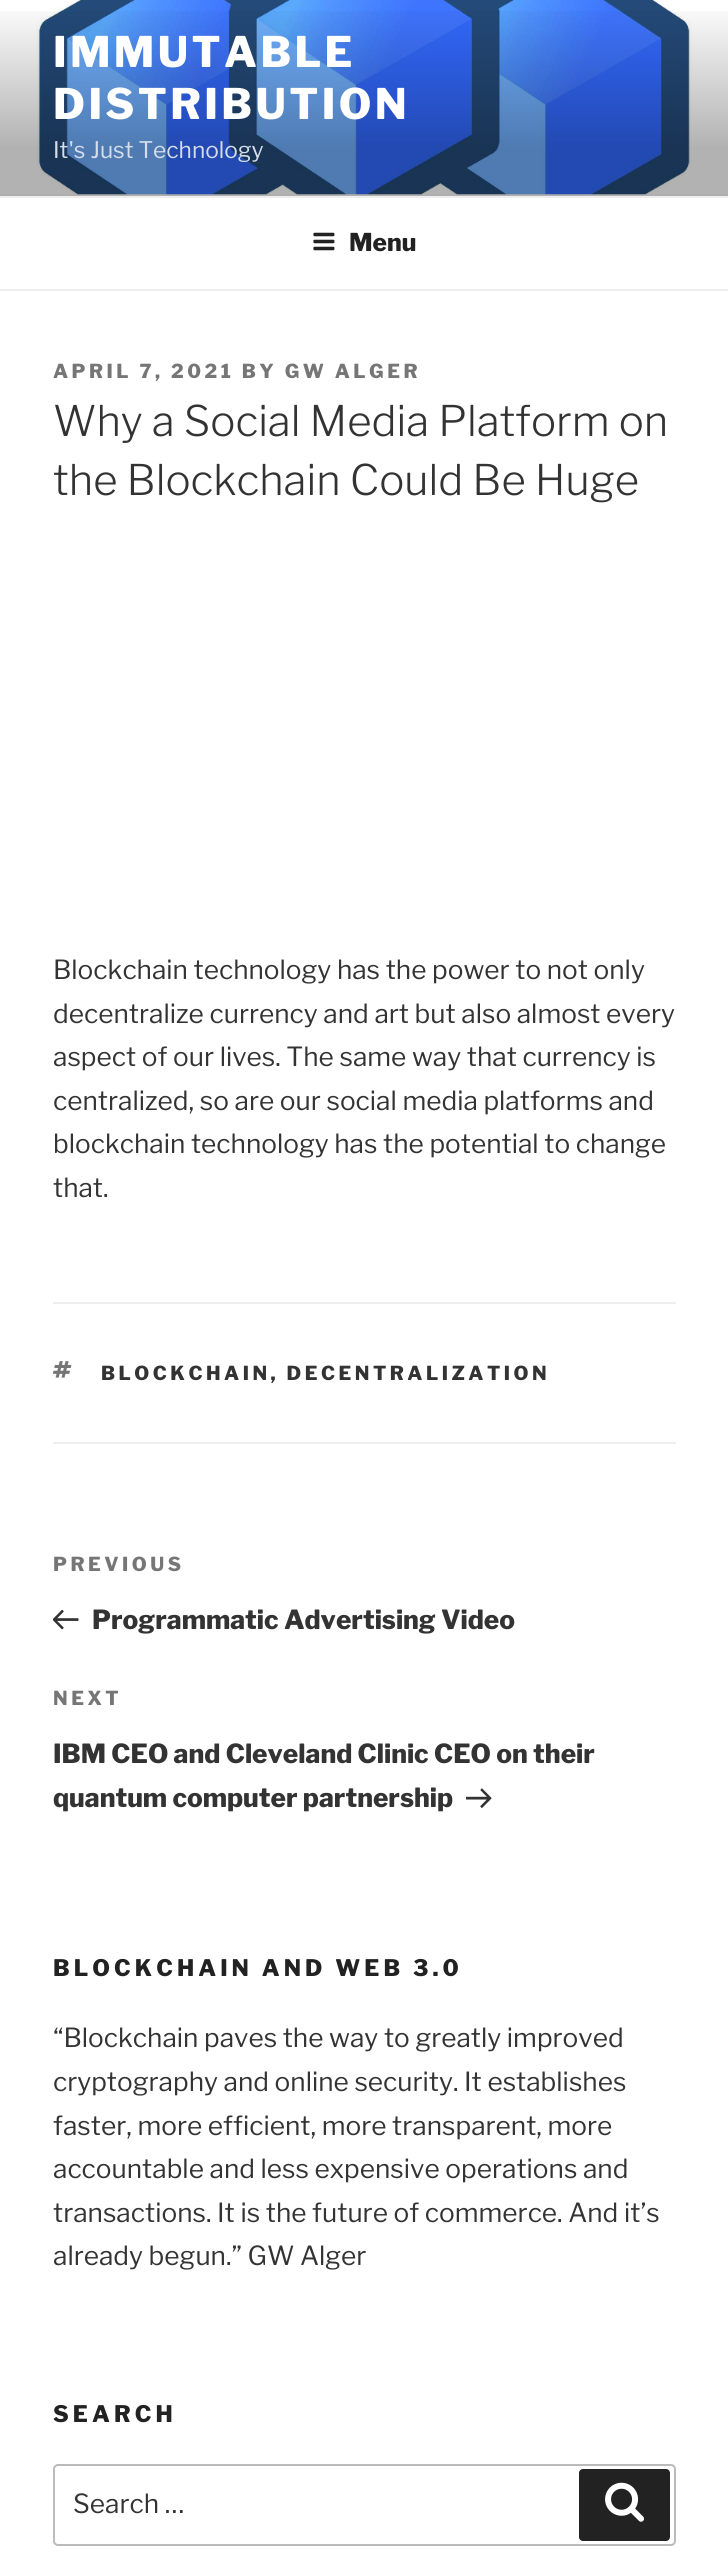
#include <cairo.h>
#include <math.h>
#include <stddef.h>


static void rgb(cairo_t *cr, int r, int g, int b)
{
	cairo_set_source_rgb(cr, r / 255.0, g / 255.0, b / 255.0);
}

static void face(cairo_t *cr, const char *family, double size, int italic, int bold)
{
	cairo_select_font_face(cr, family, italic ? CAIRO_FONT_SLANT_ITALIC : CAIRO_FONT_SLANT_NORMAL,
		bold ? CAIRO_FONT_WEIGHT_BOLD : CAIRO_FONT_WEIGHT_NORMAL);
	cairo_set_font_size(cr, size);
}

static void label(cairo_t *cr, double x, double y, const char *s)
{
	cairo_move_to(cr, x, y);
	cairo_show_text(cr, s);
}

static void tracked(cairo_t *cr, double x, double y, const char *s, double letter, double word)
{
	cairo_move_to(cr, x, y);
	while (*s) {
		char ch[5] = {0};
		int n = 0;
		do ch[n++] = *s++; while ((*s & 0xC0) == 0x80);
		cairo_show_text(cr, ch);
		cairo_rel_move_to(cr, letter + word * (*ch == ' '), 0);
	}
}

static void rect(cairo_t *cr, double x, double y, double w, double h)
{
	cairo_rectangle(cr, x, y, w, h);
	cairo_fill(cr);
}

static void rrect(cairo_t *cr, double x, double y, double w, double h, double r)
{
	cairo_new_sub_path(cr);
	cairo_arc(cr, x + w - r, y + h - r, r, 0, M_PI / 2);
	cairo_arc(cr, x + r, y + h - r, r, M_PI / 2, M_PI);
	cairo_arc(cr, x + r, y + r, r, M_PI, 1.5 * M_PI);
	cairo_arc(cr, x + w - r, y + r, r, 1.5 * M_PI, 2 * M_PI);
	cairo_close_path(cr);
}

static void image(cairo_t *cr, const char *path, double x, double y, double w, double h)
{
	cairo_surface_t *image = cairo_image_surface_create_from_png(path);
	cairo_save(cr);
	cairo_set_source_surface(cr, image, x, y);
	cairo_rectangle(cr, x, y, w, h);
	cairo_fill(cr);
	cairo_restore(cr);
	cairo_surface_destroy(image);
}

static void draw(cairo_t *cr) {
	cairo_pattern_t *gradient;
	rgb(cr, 255, 255, 255);
	cairo_paint(cr);
	rgb(cr, 250, 250, 250);
	rect(cr, 0, 194, 728, 2);
	image(cr, "image0.png", 0, 0, 728, 195);
	gradient = cairo_pattern_create_linear(364, 0, 364, 196);
	cairo_pattern_add_color_stop_rgba(gradient, 0, 0, 0, 0, 0);
	cairo_pattern_add_color_stop_rgba(gradient, 0.75, 0, 0, 0, 0.3);
	cairo_pattern_add_color_stop_rgba(gradient, 1, 0, 0, 0, 0.3);
	cairo_set_source(cr, gradient);
	cairo_pattern_destroy(gradient);
	rect(cr, 0, 11, 728, 185);
	face(cr, "Libre Franklin Thin", 42, 0, 0);
	rgb(cr, 255, 255, 255);
	tracked(cr, 53, 67, "IMMUTABLE", 3.4, 0);
	tracked(cr, 53, 119, "DISTRIBUTION", 3.4, 0);
	face(cr, "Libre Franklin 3 Thin", 22.75, 0, 0);
	rgb(cr, 214, 222, 235);
	label(cr, 53, 158, "It's Just Technology");
	rgb(cr, 238, 238, 238);
	rect(cr, 0, 196, 728, 2);
	rect(cr, 0, 289, 728, 2);
	image(cr, "image1.png", 313, 232, 22, 19);
	face(cr, "Libre Franklin Thin", 24.5, 0, 0);
	rgb(cr, 34, 34, 34);
	label(cr, 349, 251, "Menu");
	face(cr, "Libre Franklin Thin", 19.25, 0, 0);
	rgb(cr, 118, 118, 118);
	tracked(cr, 53, 378, "APRIL 7, 2021 BY GW ALGER", 3.5, 0);
	face(cr, "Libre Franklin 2 Thin", 42, 0, 0);
	rgb(cr, 51, 51, 51);
	label(cr, 53, 436, "Why a Social Media Platform on");
	label(cr, 53, 495, "the Blockchain Could Be Huge");
	face(cr, "Libre Franklin 3 Thin", 26.25, 0, 0);
	label(cr, 53, 979, "Blockchain technology has the power to not only");
	label(cr, 53, 1023, "decentralize currency and art but also almost every");
	label(cr, 53, 1066, "aspect of our lives. The same way that currency is");
	label(cr, 53, 1110, "centralized, so are our social media platforms and");
	label(cr, 53, 1153, "blockchain technology has the potential to change");
	label(cr, 53, 1197, "that.");
	rgb(cr, 238, 238, 238);
	rect(cr, 53, 1302, 623, 2);
	rect(cr, 53, 1442, 623, 2);
	image(cr, "image2.png", 53, 1361, 19, 17);
	face(cr, "Libre Franklin Thin", 19.25, 0, 0);
	rgb(cr, 51, 51, 51);
	tracked(cr, 101, 1380, "BLOCKCHAIN, DECENTRALIZATION", 3.5, 0);
	rgb(cr, 118, 118, 118);
	tracked(cr, 53, 1571, "PREVIOUS", 3.5, 0);
	image(cr, "image3.png", 53, 1609, 26, 21);
	face(cr, "Libre Franklin Thin", 26.25, 0, 0);
	rgb(cr, 51, 51, 51);
	label(cr, 92, 1629, "Programmatic Advertising Video");
	face(cr, "Libre Franklin Thin", 19.25, 0, 0);
	rgb(cr, 118, 118, 118);
	tracked(cr, 53, 1705, "NEXT", 3.5, 0);
	face(cr, "Libre Franklin Thin", 26.25, 0, 0);
	rgb(cr, 51, 51, 51);
	label(cr, 53, 1763, "IBM CEO and Cleveland Clinic CEO on their");
	label(cr, 53, 1807, "quantum computer partnership");
	image(cr, "image4.png", 466, 1788, 26, 20);
	face(cr, "Libre Franklin Thin", 22.75, 0, 0);
	rgb(cr, 34, 34, 34);
	tracked(cr, 53, 1976, "BLOCKCHAIN AND WEB 3.0", 4.1, 0);
	face(cr, "Libre Franklin 3 Thin", 26.25, 0, 0);
	rgb(cr, 51, 51, 51);
	label(cr, 53, 2047, "“Blockchain paves the way to greatly improved");
	label(cr, 53, 2091, "cryptography and online security. It establishes");
	label(cr, 53, 2135, "faster, more efficient, more transparent, more");
	label(cr, 53, 2178, "accountable and less expensive operations and");
	label(cr, 53, 2222, "transactions. It is the future of commerce. And it’s");
	label(cr, 53, 2265, "already begun.” GW Alger");
	face(cr, "Libre Franklin Thin", 22.75, 0, 0);
	rgb(cr, 34, 34, 34);
	tracked(cr, 53, 2422, "SEARCH", 4.1, 0);
	rrect(cr, 54, 2465, 621, 80, 4);
	rgb(cr, 187, 187, 187);
	cairo_stroke(cr);
	face(cr, "Libre Franklin 3 Thin", 26.25, 0, 0);
	rgb(cr, 51, 51, 51);
	label(cr, 73, 2513, "Search …");
	rgb(cr, 34, 34, 34);
	rrect(cr, 579, 2469, 91, 72, 4);
	cairo_fill(cr);
	image(cr, "image5.png", 605, 2482, 39, 40);
}

int main(void) {
	cairo_surface_t *surface = cairo_image_surface_create(CAIRO_FORMAT_RGB24, 728, 2574);
	cairo_t *cr = cairo_create(surface);
	cairo_font_options_t *options = cairo_font_options_create();
	cairo_font_options_set_hint_metrics(options, CAIRO_HINT_METRICS_OFF);
	cairo_font_options_set_hint_style(options, CAIRO_HINT_STYLE_NONE);
	cairo_set_font_options(cr, options);
	cairo_set_miter_limit(cr, 4);
	draw(cr);
	cairo_surface_write_to_png(surface, "render.png");
	cairo_font_options_destroy(options);
	cairo_destroy(cr);
	cairo_surface_destroy(surface);
	return 0;
}
